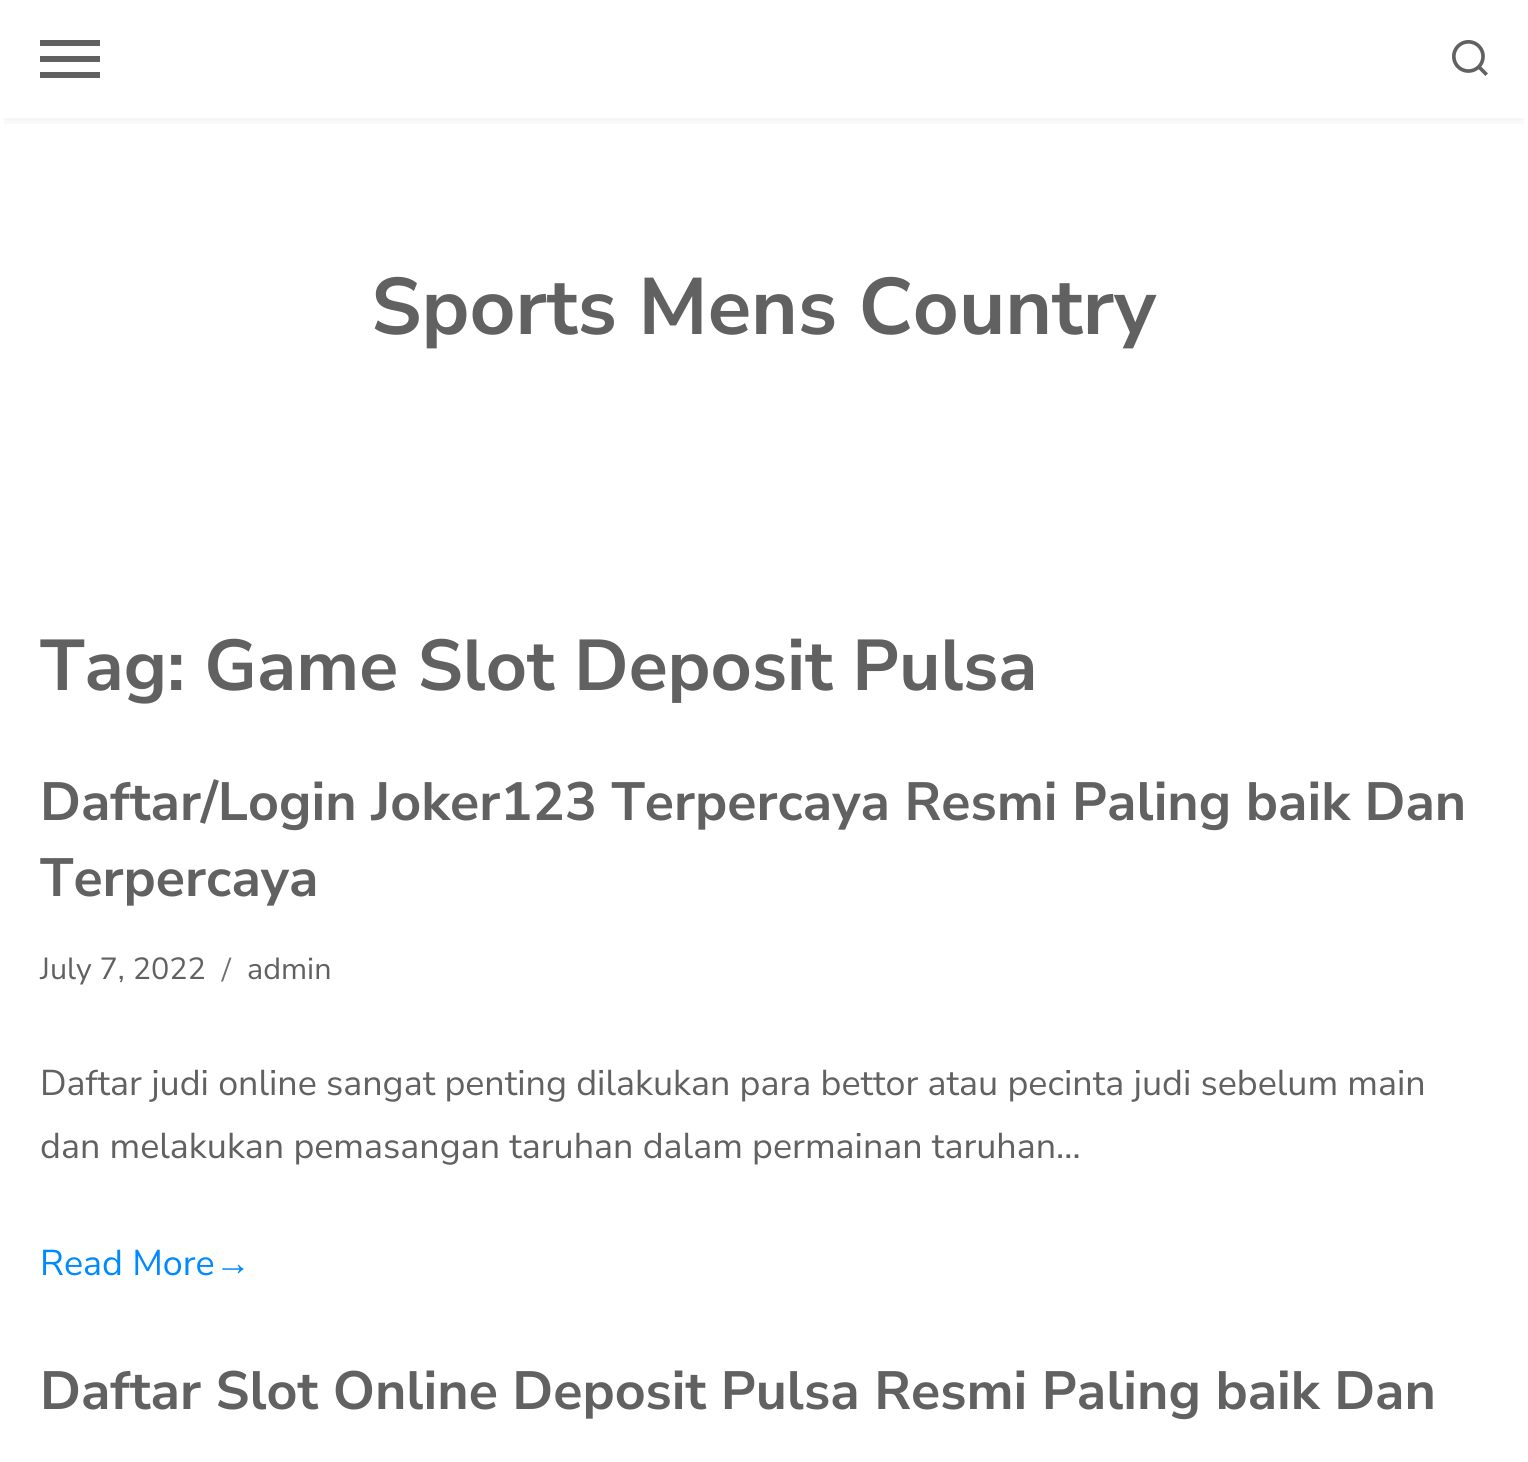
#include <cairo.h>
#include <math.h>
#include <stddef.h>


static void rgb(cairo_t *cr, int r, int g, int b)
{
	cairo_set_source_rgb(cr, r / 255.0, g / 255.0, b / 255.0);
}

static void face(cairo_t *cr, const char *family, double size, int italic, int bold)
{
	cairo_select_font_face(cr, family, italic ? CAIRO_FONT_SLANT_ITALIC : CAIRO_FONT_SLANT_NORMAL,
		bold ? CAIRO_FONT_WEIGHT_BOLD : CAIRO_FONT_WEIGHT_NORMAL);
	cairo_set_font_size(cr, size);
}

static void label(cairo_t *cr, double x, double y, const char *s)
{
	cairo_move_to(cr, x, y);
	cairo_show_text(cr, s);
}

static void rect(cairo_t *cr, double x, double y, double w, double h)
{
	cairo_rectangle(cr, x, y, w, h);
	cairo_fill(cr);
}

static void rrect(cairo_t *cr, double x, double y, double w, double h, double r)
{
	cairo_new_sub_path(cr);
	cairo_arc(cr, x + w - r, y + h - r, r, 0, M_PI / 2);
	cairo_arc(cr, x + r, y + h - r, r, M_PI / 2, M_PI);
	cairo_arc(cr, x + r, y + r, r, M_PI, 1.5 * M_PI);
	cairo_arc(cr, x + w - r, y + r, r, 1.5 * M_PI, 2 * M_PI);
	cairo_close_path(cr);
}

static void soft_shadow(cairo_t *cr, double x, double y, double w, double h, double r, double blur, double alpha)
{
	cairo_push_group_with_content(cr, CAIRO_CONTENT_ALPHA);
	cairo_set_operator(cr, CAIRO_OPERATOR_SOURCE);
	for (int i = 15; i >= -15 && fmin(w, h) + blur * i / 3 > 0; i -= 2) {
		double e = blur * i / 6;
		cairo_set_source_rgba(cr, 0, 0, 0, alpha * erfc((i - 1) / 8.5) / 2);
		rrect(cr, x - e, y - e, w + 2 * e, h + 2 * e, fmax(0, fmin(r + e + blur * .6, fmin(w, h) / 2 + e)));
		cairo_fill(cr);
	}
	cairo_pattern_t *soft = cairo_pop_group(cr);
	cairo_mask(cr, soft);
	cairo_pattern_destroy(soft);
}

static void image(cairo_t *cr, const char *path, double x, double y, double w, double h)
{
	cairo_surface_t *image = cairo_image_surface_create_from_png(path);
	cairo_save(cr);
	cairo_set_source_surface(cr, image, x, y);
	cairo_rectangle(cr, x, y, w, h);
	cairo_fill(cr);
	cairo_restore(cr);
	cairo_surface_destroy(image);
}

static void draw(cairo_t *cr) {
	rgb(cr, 255, 255, 255);
	cairo_paint(cr);
	cairo_save(cr);
	cairo_rectangle(cr, 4, 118, 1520, 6);
	cairo_clip(cr);
	rgb(cr, 0, 0, 0);
	soft_shadow(cr, 4, 6, 1520, 110, 0, 10, 0.1);
	cairo_restore(cr);
	rgb(cr, 97, 97, 97);
	rect(cr, 40, 40, 60, 6);
	rect(cr, 40, 56, 60, 6);
	rect(cr, 40, 72, 60, 6);
	image(cr, "image0.png", 1452, 40, 36, 36);
	face(cr, "Nunito Sans", 80, 0, 1);
	label(cr, 371, 334, "Sports Mens Country");
	face(cr, "Nunito Sans", 71.75, 0, 1);
	label(cr, 40, 690, "Tag: Game Slot Deposit Pulsa");
	face(cr, "Nunito Sans", 53.75, 0, 1);
	label(cr, 40, 820, "Daftar/Login Joker123 Terpercaya Resmi Paling baik Dan");
	label(cr, 40, 896, "Terpercaya");
	face(cr, "Nunito Sans", 30.5, 0, 0);
	label(cr, 40, 979, "July 7, 2022");
	rgb(cr, 111, 111, 111);
	cairo_new_path(cr);
	cairo_move_to(cr, 229.5, 957.5);
	cairo_line_to(cr, 231.5, 957.5);
	cairo_line_to(cr, 223, 981.5);
	cairo_line_to(cr, 221, 981.5);
	cairo_close_path(cr);
	cairo_fill(cr);
	rgb(cr, 97, 97, 97);
	label(cr, 247, 979, "admin");
	face(cr, "Nunito Sans", 35.85, 0, 0);
	label(cr, 40, 1095, "Daftar judi online sangat penting dilakukan para bettor atau pecinta judi sebelum main");
	label(cr, 40, 1158, "dan melakukan pemasangan taruhan dalam permainan taruhan…");
	rgb(cr, 0, 138, 255);
	label(cr, 40, 1275, "Read More");
	face(cr, "Liberation Sans", 35.85, 0, 0);
	label(cr, 215, 1275, "→");
	face(cr, "Nunito Sans", 53.75, 0, 1);
	rgb(cr, 97, 97, 97);
	label(cr, 40, 1409, "Daftar Slot Online Deposit Pulsa Resmi Paling baik Dan");
}

int main(void) {
	cairo_surface_t *surface = cairo_image_surface_create(CAIRO_FORMAT_RGB24, 1528, 1462);
	cairo_t *cr = cairo_create(surface);
	cairo_font_options_t *options = cairo_font_options_create();
	cairo_font_options_set_hint_metrics(options, CAIRO_HINT_METRICS_OFF);
	cairo_font_options_set_hint_style(options, CAIRO_HINT_STYLE_NONE);
	cairo_set_font_options(cr, options);
	cairo_set_miter_limit(cr, 4);
	draw(cr);
	cairo_surface_write_to_png(surface, "render.png");
	cairo_font_options_destroy(options);
	cairo_destroy(cr);
	cairo_surface_destroy(surface);
	return 0;
}
